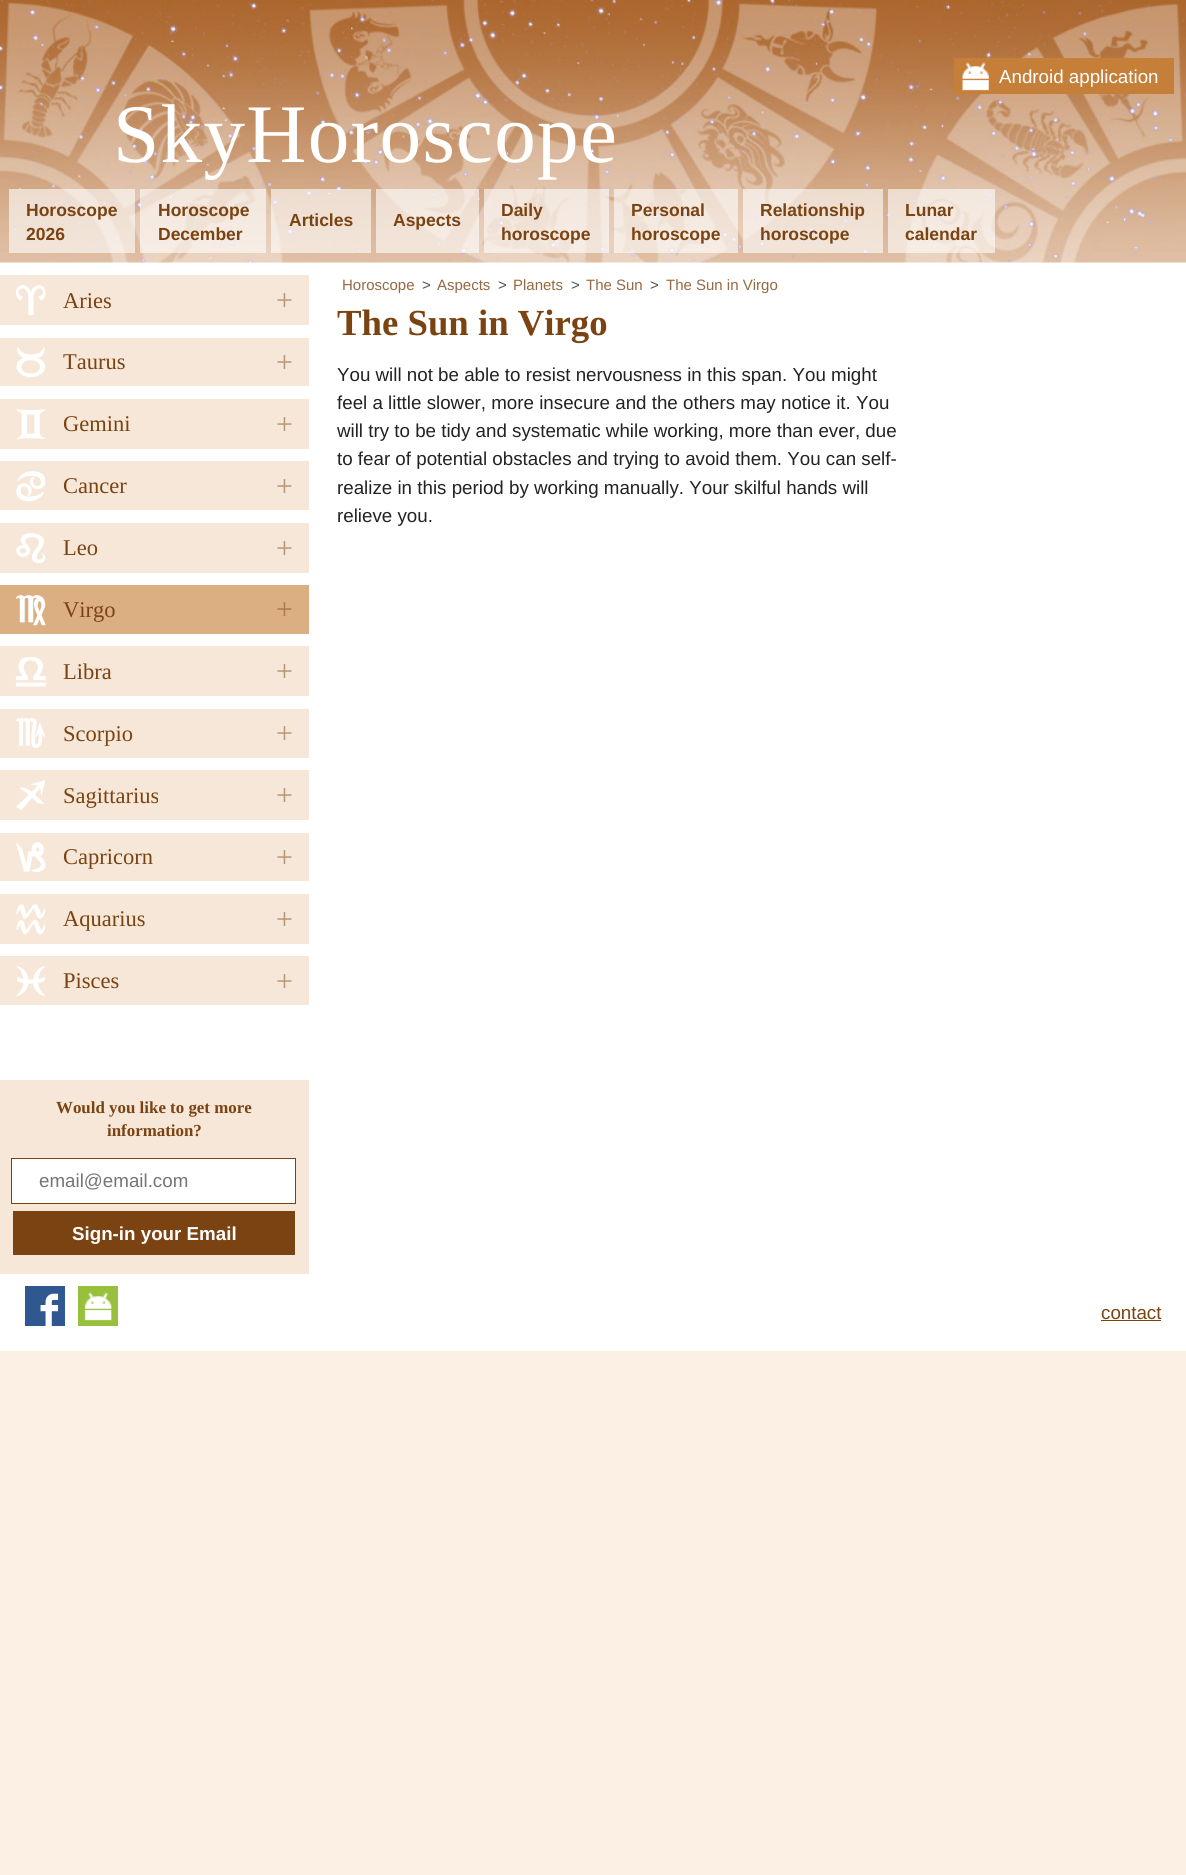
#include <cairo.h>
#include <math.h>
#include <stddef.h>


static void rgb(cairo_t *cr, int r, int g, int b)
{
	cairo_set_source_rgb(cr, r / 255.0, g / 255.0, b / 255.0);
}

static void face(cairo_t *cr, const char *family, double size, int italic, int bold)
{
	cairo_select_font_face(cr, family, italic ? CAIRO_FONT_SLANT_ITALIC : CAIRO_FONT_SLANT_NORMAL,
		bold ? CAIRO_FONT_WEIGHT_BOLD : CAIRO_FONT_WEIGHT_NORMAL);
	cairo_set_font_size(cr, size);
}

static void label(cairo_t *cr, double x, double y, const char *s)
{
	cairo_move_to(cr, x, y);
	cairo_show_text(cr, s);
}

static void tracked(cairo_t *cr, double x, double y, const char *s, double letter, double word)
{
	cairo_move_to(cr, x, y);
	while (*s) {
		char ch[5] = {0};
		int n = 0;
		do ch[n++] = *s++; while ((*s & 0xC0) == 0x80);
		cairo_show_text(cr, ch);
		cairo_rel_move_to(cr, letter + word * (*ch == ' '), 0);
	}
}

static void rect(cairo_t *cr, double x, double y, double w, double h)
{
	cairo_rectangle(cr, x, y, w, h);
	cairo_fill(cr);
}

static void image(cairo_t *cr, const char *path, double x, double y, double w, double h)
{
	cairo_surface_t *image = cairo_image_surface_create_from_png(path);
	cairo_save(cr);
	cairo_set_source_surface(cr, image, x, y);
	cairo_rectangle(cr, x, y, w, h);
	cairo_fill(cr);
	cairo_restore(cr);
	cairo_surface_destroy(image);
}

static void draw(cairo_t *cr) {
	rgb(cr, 252, 239, 228);
	cairo_paint(cr);
	rgb(cr, 255, 255, 255);
	rect(cr, 0, 262, 1186, 1089);
	image(cr, "image0.png", 0, 0, 1186, 263);
	rgb(cr, 197, 127, 57);
	rect(cr, 954, 58, 220, 36);
	image(cr, "image1.png", 962, 62, 27, 29);
	face(cr, "Liberation Sans", 18.75, 0, 0);
	rgb(cr, 255, 255, 255);
	label(cr, 999, 83, "Android application");
	face(cr, "Liberation Serif", 83.25, 0, 0);
	tracked(cr, 113, 162, "SkyHoroscope", 1.25, 0);
	cairo_set_source_rgba(cr, 1, 1, 1, 0.6);
	rect(cr, 9, 189, 126, 64);
	face(cr, "Liberation Sans", 17.5, 0, 1);
	rgb(cr, 122, 67, 17);
	label(cr, 26, 216, "Horoscope");
	label(cr, 26, 240, "2026");
	cairo_set_source_rgba(cr, 1, 1, 1, 0.6);
	rect(cr, 140, 189, 126, 64);
	rgb(cr, 122, 67, 17);
	label(cr, 158, 216, "Horoscope");
	label(cr, 158, 240, "December");
	cairo_set_source_rgba(cr, 1, 1, 1, 0.6);
	rect(cr, 271, 189, 100, 64);
	rgb(cr, 122, 67, 17);
	label(cr, 289, 226, "Articles");
	cairo_set_source_rgba(cr, 1, 1, 1, 0.6);
	rect(cr, 376, 189, 103, 64);
	rgb(cr, 122, 67, 17);
	label(cr, 393, 226, "Aspects");
	cairo_set_source_rgba(cr, 1, 1, 1, 0.6);
	rect(cr, 484, 189, 125, 64);
	rgb(cr, 122, 67, 17);
	label(cr, 501, 216, "Daily");
	label(cr, 501, 240, "horoscope");
	cairo_set_source_rgba(cr, 1, 1, 1, 0.6);
	rect(cr, 614, 189, 124, 64);
	rgb(cr, 122, 67, 17);
	label(cr, 631, 216, "Personal");
	label(cr, 631, 240, "horoscope");
	cairo_set_source_rgba(cr, 1, 1, 1, 0.6);
	rect(cr, 743, 189, 140, 64);
	rgb(cr, 122, 67, 17);
	label(cr, 760, 216, "Relationship");
	label(cr, 760, 240, "horoscope");
	cairo_set_source_rgba(cr, 1, 1, 1, 0.6);
	rect(cr, 888, 189, 107, 64);
	rgb(cr, 122, 67, 17);
	label(cr, 905, 216, "Lunar");
	label(cr, 905, 240, "calendar");
	rgb(cr, 246, 231, 216);
	rect(cr, 0, 275, 309, 50);
	face(cr, "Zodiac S", 30, 0, 1);
	rgb(cr, 255, 255, 255);
	label(cr, 15, 316, "a");
	face(cr, "Liberation Serif", 22.5, 0, 0);
	rgb(cr, 122, 67, 17);
	label(cr, 63, 308, "Aries");
	face(cr, "Liberation Serif", 30, 0, 0);
	rgb(cr, 184, 149, 117);
	label(cr, 276, 310, "+");
	rgb(cr, 246, 231, 216);
	rect(cr, 0, 338, 309, 48);
	face(cr, "Zodiac S", 30, 0, 1);
	rgb(cr, 255, 255, 255);
	label(cr, 15, 378, "b");
	face(cr, "Liberation Serif", 22.5, 0, 0);
	rgb(cr, 122, 67, 17);
	label(cr, 63, 369, "Taurus");
	face(cr, "Liberation Serif", 30, 0, 0);
	rgb(cr, 184, 149, 117);
	label(cr, 276, 372, "+");
	rgb(cr, 246, 231, 216);
	rect(cr, 0, 399, 309, 50);
	face(cr, "Zodiac S", 30, 0, 1);
	rgb(cr, 255, 255, 255);
	label(cr, 15, 440, "c");
	face(cr, "Liberation Serif", 22.5, 0, 0);
	rgb(cr, 122, 67, 17);
	label(cr, 63, 431, "Gemini");
	face(cr, "Liberation Serif", 30, 0, 0);
	rgb(cr, 184, 149, 117);
	label(cr, 276, 434, "+");
	rgb(cr, 246, 231, 216);
	rect(cr, 0, 461, 309, 49);
	face(cr, "Zodiac S", 30, 0, 1);
	rgb(cr, 255, 255, 255);
	label(cr, 15, 502, "d");
	face(cr, "Liberation Serif", 22.5, 0, 0);
	rgb(cr, 122, 67, 17);
	label(cr, 63, 493, "Cancer");
	face(cr, "Liberation Serif", 30, 0, 0);
	rgb(cr, 184, 149, 117);
	label(cr, 276, 496, "+");
	rgb(cr, 246, 231, 216);
	rect(cr, 0, 523, 309, 50);
	face(cr, "Zodiac S", 30, 0, 1);
	rgb(cr, 255, 255, 255);
	label(cr, 15, 564, "e");
	face(cr, "Liberation Serif", 22.5, 0, 0);
	rgb(cr, 122, 67, 17);
	label(cr, 63, 555, "Leo");
	face(cr, "Liberation Serif", 30, 0, 0);
	rgb(cr, 184, 149, 117);
	label(cr, 276, 558, "+");
	rgb(cr, 220, 175, 131);
	rect(cr, 0, 585, 309, 49);
	face(cr, "Zodiac S", 30, 0, 1);
	rgb(cr, 255, 255, 255);
	label(cr, 15, 626, "f");
	face(cr, "Liberation Serif", 22.5, 0, 0);
	rgb(cr, 122, 67, 17);
	label(cr, 63, 617, "Virgo");
	face(cr, "Liberation Serif", 30, 0, 0);
	rgb(cr, 171, 121, 74);
	label(cr, 276, 619, "+");
	rgb(cr, 246, 231, 216);
	rect(cr, 0, 646, 309, 50);
	face(cr, "Zodiac S", 30, 0, 1);
	rgb(cr, 255, 255, 255);
	label(cr, 15, 688, "g");
	face(cr, "Liberation Serif", 22.5, 0, 0);
	rgb(cr, 122, 67, 17);
	label(cr, 63, 679, "Libra");
	face(cr, "Liberation Serif", 30, 0, 0);
	rgb(cr, 184, 149, 117);
	label(cr, 276, 681, "+");
	rgb(cr, 246, 231, 216);
	rect(cr, 0, 709, 309, 49);
	face(cr, "Zodiac S", 30, 0, 1);
	rgb(cr, 255, 255, 255);
	label(cr, 15, 749, "h");
	face(cr, "Liberation Serif", 22.5, 0, 0);
	rgb(cr, 122, 67, 17);
	label(cr, 63, 741, "Scorpio");
	face(cr, "Liberation Serif", 30, 0, 0);
	rgb(cr, 184, 149, 117);
	label(cr, 276, 743, "+");
	rgb(cr, 246, 231, 216);
	rect(cr, 0, 770, 309, 50);
	face(cr, "Zodiac S", 30, 0, 1);
	rgb(cr, 255, 255, 255);
	label(cr, 15, 811, "i");
	face(cr, "Liberation Serif", 22.5, 0, 0);
	rgb(cr, 122, 67, 17);
	label(cr, 63, 803, "Sagittarius");
	face(cr, "Liberation Serif", 30, 0, 0);
	rgb(cr, 184, 149, 117);
	label(cr, 276, 805, "+");
	rgb(cr, 246, 231, 216);
	rect(cr, 0, 833, 309, 48);
	face(cr, "Zodiac S", 30, 0, 1);
	rgb(cr, 255, 255, 255);
	label(cr, 15, 873, "j");
	face(cr, "Liberation Serif", 22.5, 0, 0);
	rgb(cr, 122, 67, 17);
	label(cr, 63, 864, "Capricorn");
	face(cr, "Liberation Serif", 30, 0, 0);
	rgb(cr, 184, 149, 117);
	label(cr, 276, 867, "+");
	rgb(cr, 246, 231, 216);
	rect(cr, 0, 894, 309, 50);
	face(cr, "Zodiac S", 30, 0, 1);
	rgb(cr, 255, 255, 255);
	label(cr, 15, 935, "k");
	face(cr, "Liberation Serif", 22.5, 0, 0);
	rgb(cr, 122, 67, 17);
	label(cr, 63, 926, "Aquarius");
	face(cr, "Liberation Serif", 30, 0, 0);
	rgb(cr, 184, 149, 117);
	label(cr, 276, 929, "+");
	rgb(cr, 246, 231, 216);
	rect(cr, 0, 956, 309, 49);
	face(cr, "Zodiac S", 30, 0, 1);
	rgb(cr, 255, 255, 255);
	label(cr, 15, 997, "l");
	face(cr, "Liberation Serif", 22.5, 0, 0);
	rgb(cr, 122, 67, 17);
	label(cr, 63, 988, "Pisces");
	face(cr, "Liberation Serif", 30, 0, 0);
	rgb(cr, 184, 149, 117);
	label(cr, 276, 991, "+");
	rgb(cr, 246, 231, 216);
	rect(cr, 0, 1080, 309, 194);
	face(cr, "Liberation Serif", 16.9, 0, 1);
	rgb(cr, 122, 67, 17);
	label(cr, 56, 1113, "Would you like to get more");
	label(cr, 107, 1136, "information?");
	rgb(cr, 255, 255, 255);
	cairo_rectangle(cr, 11.5, 1158.5, 284, 45);
	cairo_fill_preserve(cr);
	rgb(cr, 122, 67, 17);
	cairo_set_line_width(cr, 1);
	cairo_stroke(cr);
	face(cr, "Liberation Sans", 18.75, 0, 0);
	rgb(cr, 117, 117, 117);
	label(cr, 39, 1187, "email@email.com");
	rgb(cr, 122, 67, 17);
	rect(cr, 13, 1211, 282, 44);
	face(cr, "Liberation Sans", 18.75, 0, 1);
	rgb(cr, 255, 255, 255);
	label(cr, 72, 1240, "Sign-in your Email");
	face(cr, "Liberation Sans", 15, 0, 0);
	rgb(cr, 149, 105, 65);
	label(cr, 342, 290, "Horoscope");
	rgb(cr, 78, 78, 78);
	label(cr, 422, 290, ">");
	rgb(cr, 149, 105, 65);
	label(cr, 437, 290, "Aspects");
	rgb(cr, 78, 78, 78);
	label(cr, 498, 290, ">");
	rgb(cr, 149, 105, 65);
	label(cr, 513, 290, "Planets");
	rgb(cr, 78, 78, 78);
	label(cr, 571, 290, ">");
	rgb(cr, 149, 105, 65);
	label(cr, 586, 290, "The Sun");
	rgb(cr, 78, 78, 78);
	label(cr, 650, 290, ">");
	rgb(cr, 149, 105, 65);
	label(cr, 666, 290, "The Sun in Virgo");
	face(cr, "Liberation Serif", 36.75, 0, 1);
	rgb(cr, 122, 67, 17);
	label(cr, 337, 335, "The Sun in Virgo");
	face(cr, "Liberation Sans", 18.75, 0, 0);
	rgb(cr, 34, 34, 34);
	label(cr, 337, 381, "You will not be able to resist nervousness in this span. You might");
	label(cr, 337, 409, "feel a little slower, more insecure and the others may notice it. You");
	label(cr, 337, 437, "will try to be tidy and systematic while working, more than ever, due");
	label(cr, 337, 465, "to fear of potential obstacles and trying to avoid them. You can self-");
	label(cr, 337, 494, "realize in this period by working manually. Your skilful hands will");
	label(cr, 337, 522, "relieve you.");
	rgb(cr, 48, 88, 144);
	rect(cr, 25, 1286, 40, 40);
	image(cr, "image2.png", 40, 1293, 19, 33);
	rgb(cr, 151, 192, 61);
	rect(cr, 78, 1286, 40, 40);
	image(cr, "image3.png", 84, 1292, 28, 29);
	rgb(cr, 122, 67, 17);
	label(cr, 1101, 1319, "contact");
	rect(cr, 1101, 1320, 60, 1);
}

int main(void) {
	cairo_surface_t *surface = cairo_image_surface_create(CAIRO_FORMAT_RGB24, 1186, 1875);
	cairo_t *cr = cairo_create(surface);
	cairo_font_options_t *options = cairo_font_options_create();
	cairo_font_options_set_hint_metrics(options, CAIRO_HINT_METRICS_OFF);
	cairo_font_options_set_hint_style(options, CAIRO_HINT_STYLE_NONE);
	cairo_set_font_options(cr, options);
	cairo_set_miter_limit(cr, 4);
	draw(cr);
	cairo_surface_write_to_png(surface, "render.png");
	cairo_font_options_destroy(options);
	cairo_destroy(cr);
	cairo_surface_destroy(surface);
	return 0;
}
